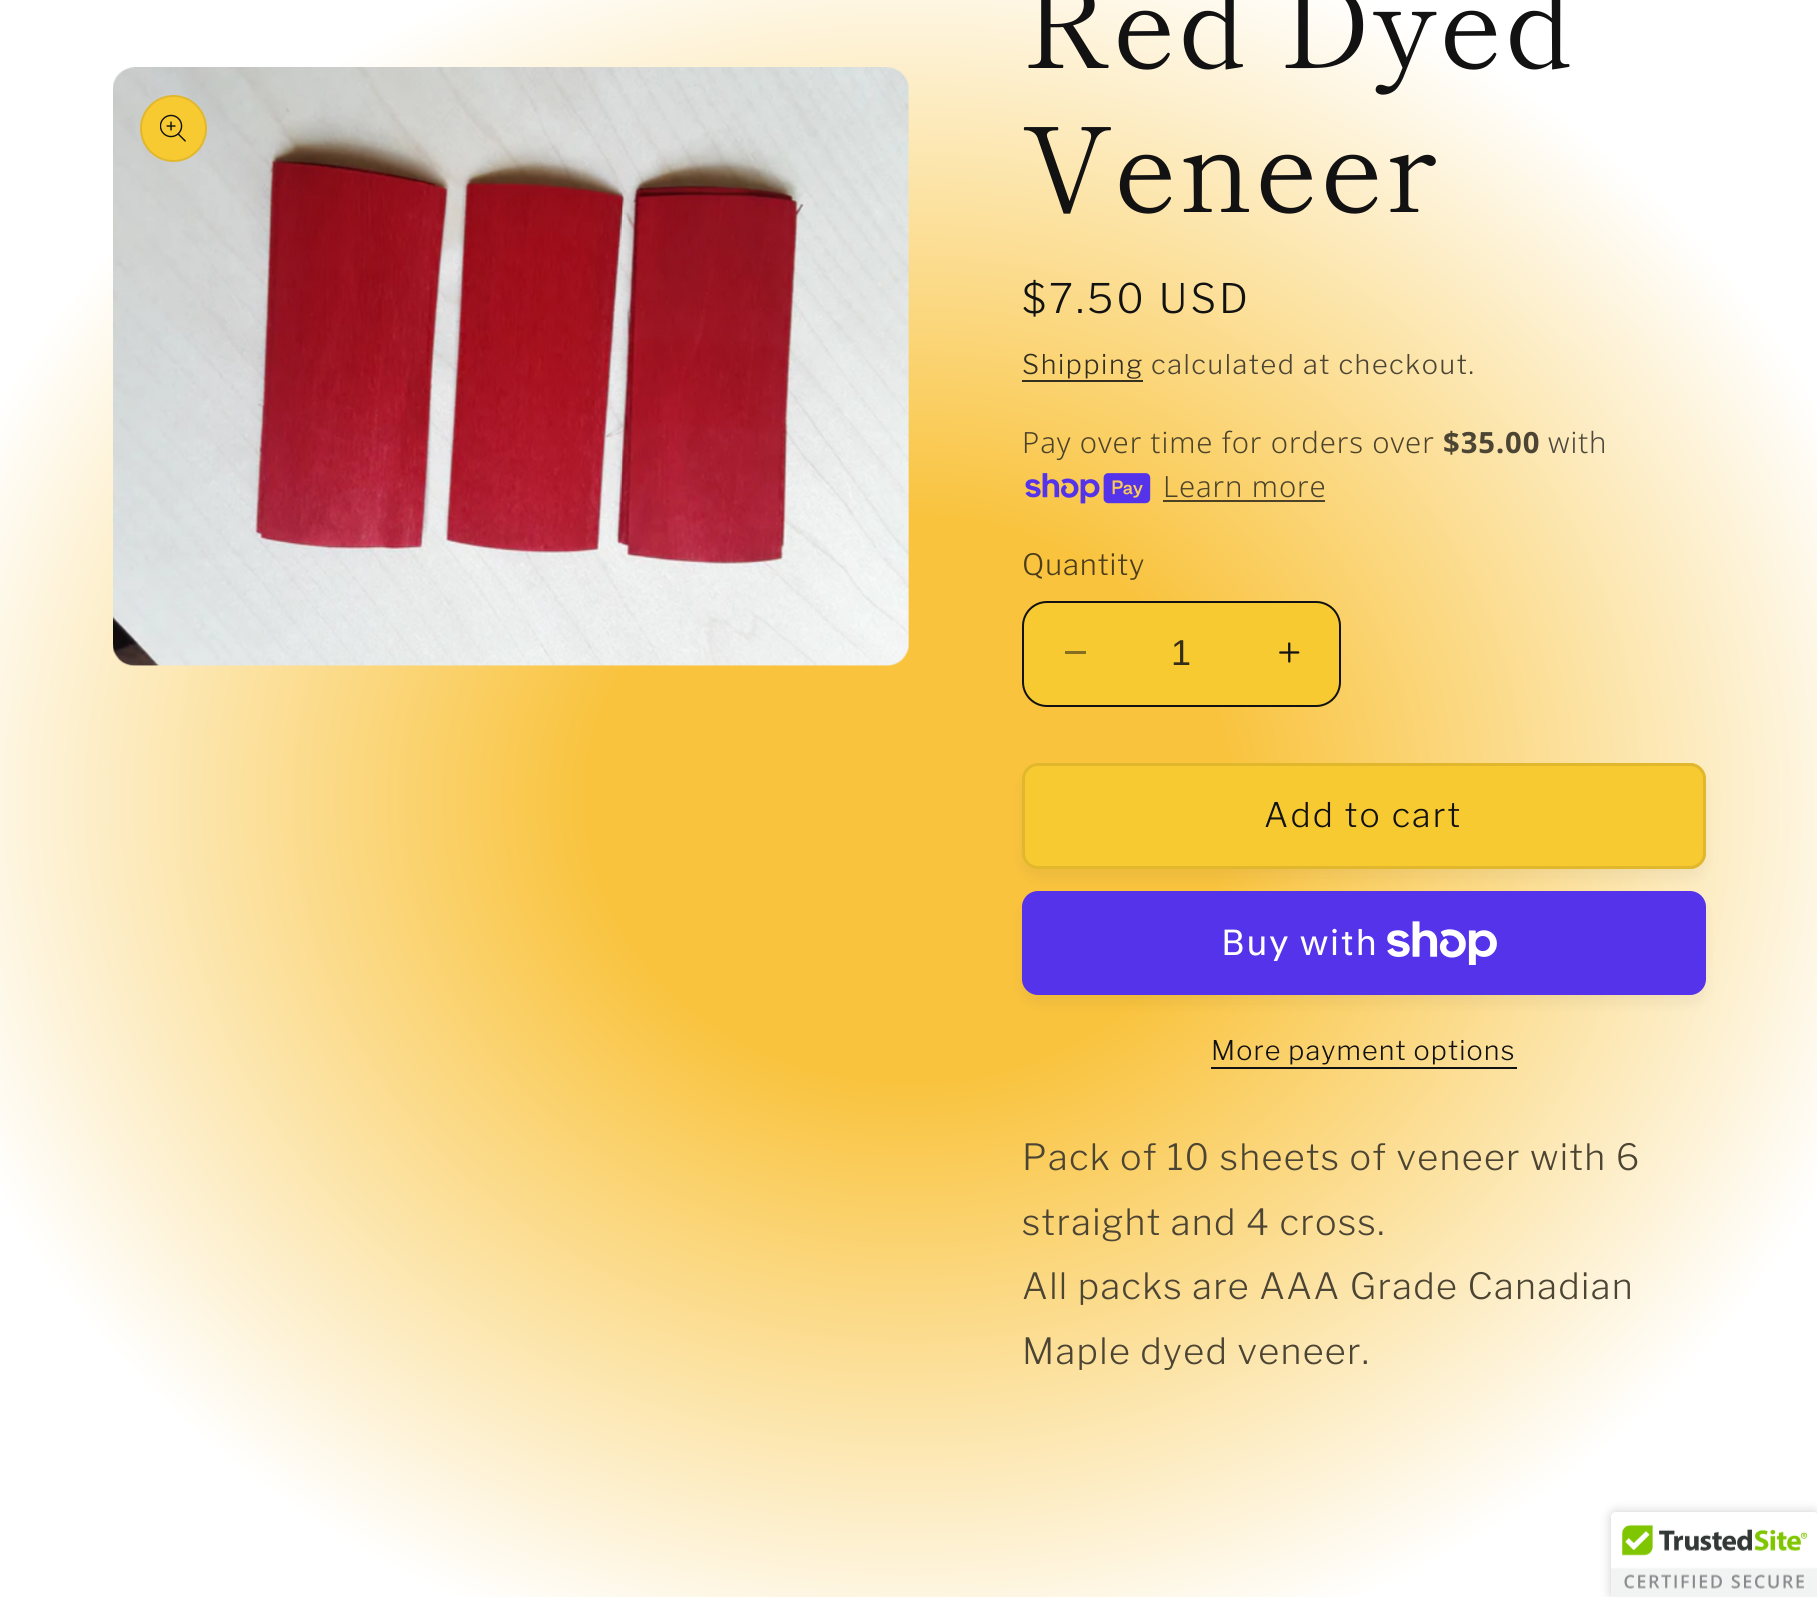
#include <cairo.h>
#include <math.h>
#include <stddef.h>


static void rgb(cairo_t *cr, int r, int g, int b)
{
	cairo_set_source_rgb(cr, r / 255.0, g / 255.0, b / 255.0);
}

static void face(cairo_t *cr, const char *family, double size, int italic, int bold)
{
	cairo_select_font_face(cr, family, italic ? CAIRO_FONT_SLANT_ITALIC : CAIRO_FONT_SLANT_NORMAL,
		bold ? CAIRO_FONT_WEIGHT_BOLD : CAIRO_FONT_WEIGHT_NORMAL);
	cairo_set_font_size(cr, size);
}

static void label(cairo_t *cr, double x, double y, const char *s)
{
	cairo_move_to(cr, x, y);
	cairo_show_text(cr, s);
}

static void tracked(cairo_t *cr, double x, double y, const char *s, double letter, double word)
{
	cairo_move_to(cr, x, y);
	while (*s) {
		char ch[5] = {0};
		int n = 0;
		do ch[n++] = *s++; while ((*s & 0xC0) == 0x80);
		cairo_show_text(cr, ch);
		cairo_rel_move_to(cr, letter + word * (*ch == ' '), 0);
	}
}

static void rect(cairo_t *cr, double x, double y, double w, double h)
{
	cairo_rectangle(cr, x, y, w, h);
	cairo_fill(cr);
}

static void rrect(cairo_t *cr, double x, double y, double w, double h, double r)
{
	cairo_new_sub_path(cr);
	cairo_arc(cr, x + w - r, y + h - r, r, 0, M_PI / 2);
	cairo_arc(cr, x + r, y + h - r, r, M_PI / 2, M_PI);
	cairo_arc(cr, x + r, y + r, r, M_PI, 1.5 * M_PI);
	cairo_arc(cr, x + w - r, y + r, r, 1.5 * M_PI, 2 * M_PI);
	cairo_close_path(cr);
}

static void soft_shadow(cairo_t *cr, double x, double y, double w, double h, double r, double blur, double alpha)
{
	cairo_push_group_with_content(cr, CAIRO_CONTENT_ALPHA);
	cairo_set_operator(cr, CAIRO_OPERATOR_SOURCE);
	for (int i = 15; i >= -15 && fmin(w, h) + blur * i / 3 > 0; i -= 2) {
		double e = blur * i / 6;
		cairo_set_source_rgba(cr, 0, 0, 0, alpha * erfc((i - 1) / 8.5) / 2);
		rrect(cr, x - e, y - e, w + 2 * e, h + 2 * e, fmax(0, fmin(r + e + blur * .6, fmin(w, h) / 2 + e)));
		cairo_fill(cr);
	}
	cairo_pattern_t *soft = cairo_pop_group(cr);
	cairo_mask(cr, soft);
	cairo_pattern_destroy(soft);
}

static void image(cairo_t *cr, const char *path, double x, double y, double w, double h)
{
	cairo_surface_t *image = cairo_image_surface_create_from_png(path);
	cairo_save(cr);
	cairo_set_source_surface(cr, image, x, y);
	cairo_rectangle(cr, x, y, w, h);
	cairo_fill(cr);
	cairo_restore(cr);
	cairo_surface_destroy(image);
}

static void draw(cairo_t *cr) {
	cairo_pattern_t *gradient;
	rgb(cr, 255, 255, 255);
	cairo_paint(cr);
	gradient = cairo_pattern_create_radial(0, 0, 0, 0, 0, 1);
	cairo_pattern_set_matrix(gradient, &(cairo_matrix_t){1.0 / 1286, 0, 0, 1.0 / 1130, -1.0 * 909 / 1286, -1.0 * 799 / 1130});
	cairo_pattern_add_color_stop_rgba(gradient, 0.25, 0.976, 0.765, 0.243, 1);
	cairo_pattern_add_color_stop_rgba(gradient, 0.79, 1, 1, 1, 1);
	cairo_pattern_add_color_stop_rgba(gradient, 0.97, 1, 1, 1, 1);
	cairo_set_source(cr, gradient);
	cairo_pattern_destroy(gradient);
	rect(cr, 0, 0, 1817, 1597);
	gradient = cairo_pattern_create_radial(0, 0, 0, 0, 0, 1);
	cairo_pattern_set_matrix(gradient, &(cairo_matrix_t){1.0 / 1286, 0, 0, 1.0 / 1130, -1.0 * 909 / 1286, -1.0 * 799 / 1130});
	cairo_pattern_add_color_stop_rgba(gradient, 0.25, 0.298, 0.243, 0.114, 1);
	cairo_pattern_add_color_stop_rgba(gradient, 0.79, 0.302, 0.302, 0.302, 1);
	cairo_pattern_add_color_stop_rgba(gradient, 0.97, 0.302, 0.302, 0.302, 1);
	cairo_set_source(cr, gradient);
	cairo_pattern_destroy(gradient);
	rect(cr, 1163, 500, 162, 2);
	gradient = cairo_pattern_create_radial(0, 0, 0, 0, 0, 1);
	cairo_pattern_set_matrix(gradient, &(cairo_matrix_t){1.0 / 1286, 0, 0, 1.0 / 1130, -1.0 * 909 / 1286, -1.0 * 799 / 1130});
	cairo_pattern_add_color_stop_rgba(gradient, 0.25, 0.208, 0.176, 0.098, 1);
	cairo_pattern_add_color_stop_rgba(gradient, 0.79, 0.212, 0.212, 0.212, 1);
	cairo_pattern_add_color_stop_rgba(gradient, 0.97, 0.212, 0.212, 0.212, 1);
	cairo_set_source(cr, gradient);
	cairo_pattern_destroy(gradient);
	rect(cr, 1022, 380, 121, 2);
	image(cr, "image0.png", 113, 67, 796, 599);
	rgb(cr, 248, 202, 49);
	cairo_arc(cr, 173.5, 128.5, 33.5, 0, 2 * M_PI);
	cairo_fill(cr);
	cairo_arc(cr, 173.5, 128.5, 32.5, 0, 2 * M_PI);
	cairo_set_source_rgba(cr, 0.071, 0.071, 0.071, 0.1);
	cairo_stroke(cr);
	image(cr, "image1.png", 160, 114, 26, 28);
	face(cr, "Shippori Mincho", 117, 0, 0);
	rgb(cr, 18, 18, 18);
	tracked(cr, 1022, 68, "Red Dyed", 1.75, 0);
	tracked(cr, 1022, 212, "Veneer", 1.75, 0);
	face(cr, "Libre Franklin Light", 40.5, 0, 0);
	tracked(cr, 1022, 313, "$7.50 USD", 3, 0);
	face(cr, "Libre Franklin Light", 27, 0, 0);
	rgb(cr, 53, 47, 33);
	tracked(cr, 1022, 374, "Shipping", 1.6, 0);
	rgb(cr, 76, 69, 51);
	tracked(cr, 1151, 374, "calculated at checkout.", 1.6, 0);
	face(cr, "Noto Sans Light", 29.25, 0, 0);
	rgb(cr, 76, 67, 43);
	tracked(cr, 1022, 453, "Pay over time for orders over", 0.9, 0);
	face(cr, "Noto Sans", 29.25, 0, 1);
	rgb(cr, 76, 69, 51);
	tracked(cr, 1443, 453, "$35.00", 0.9, 0);
	face(cr, "Noto Sans Light", 29.25, 0, 0);
	rgb(cr, 77, 72, 61);
	tracked(cr, 1548, 453, "with", 0.9, 0);
	image(cr, "image2.png", 1025, 473, 126, 31);
	rgb(cr, 76, 67, 43);
	tracked(cr, 1163, 497, "Learn more", 0.9, 0);
	face(cr, "Libre Franklin Light", 29.25, 0, 0);
	rgb(cr, 76, 62, 29);
	tracked(cr, 1022, 575, "Quantity", 0.9, 0);
	rgb(cr, 248, 202, 49);
	rrect(cr, 1022, 601, 319, 106, 25);
	cairo_fill(cr);
	rgb(cr, 133, 110, 34);
	rect(cr, 1065, 651, 21, 3);
	image(cr, "image3.png", 1279, 642, 21, 21);
	rrect(cr, 1023, 602, 317, 104, 24);
	rgb(cr, 18, 18, 18);
	cairo_stroke(cr);
	face(cr, "Liberation Sans", 36, 0, 0);
	rgb(cr, 53, 46, 23);
	label(cr, 1171, 665, "1");
	rgb(cr, 18, 18, 18);
	soft_shadow(cr, 1022, 772, 684, 106, 16, 5.5, 0.05);
	rgb(cr, 248, 202, 49);
	rrect(cr, 1022, 763, 684, 106, 16);
	cairo_fill(cr);
	rrect(cr, 1023, 764, 682, 104, 15);
	cairo_stroke(cr);
	rrect(cr, 1023.5, 764.5, 681, 103, 14.5);
	cairo_set_source_rgba(cr, 0.071, 0.071, 0.071, 0.1);
	cairo_set_line_width(cr, 3);
	cairo_stroke(cr);
	face(cr, "Libre Franklin Light", 33.75, 0, 0);
	rgb(cr, 18, 18, 18);
	tracked(cr, 1264, 827, "Add to cart", 2.25, 0);
	rgb(cr, 18, 18, 18);
	soft_shadow(cr, 1022, 900, 684, 104, 16, 5.5, 0.05);
	rgb(cr, 84, 51, 235);
	rrect(cr, 1022, 891, 684, 104, 16);
	cairo_fill(cr);
	face(cr, "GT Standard", 36, 0, 0);
	rgb(cr, 255, 255, 255);
	tracked(cr, 1221, 955, "Buy with", 1.35, 0);
	image(cr, "image4.png", 1387, 921, 110, 44);
	face(cr, "Libre Franklin Light", 27, 0, 0);
	rgb(cr, 18, 18, 18);
	tracked(cr, 1211, 1060, "More payment options", 1.1, 0);
	rect(cr, 1211, 1067, 306, 2);
	face(cr, "Libre Franklin Light", 36, 0, 0);
	rgb(cr, 76, 69, 51);
	tracked(cr, 1022, 1170, "Pack of 10 sheets of veneer with 6", 1.35, 0);
	tracked(cr, 1022, 1235, "straight and 4 cross.", 1.35, 0);
	tracked(cr, 1022, 1299, "All packs are AAA Grade Canadian", 1.35, 0);
	tracked(cr, 1022, 1364, "Maple dyed veneer.", 1.35, 0);
	rgb(cr, 0, 0, 0);
	soft_shadow(cr, 1611, 1512, 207, 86, 5, 5.5, 0.2);
	rgb(cr, 255, 255, 255);
	cairo_new_path(cr);
	cairo_move_to(cr, 1616, 1512);
	cairo_line_to(cr, 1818, 1512);
	cairo_line_to(cr, 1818, 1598);
	cairo_line_to(cr, 1611, 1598);
	cairo_line_to(cr, 1611, 1517);
	cairo_curve_to(cr, 1611, 1514, 1613, 1512, 1616, 1512);
	cairo_close_path(cr);
	cairo_fill(cr);
	image(cr, "image5.png", 1611, 1512, 206, 85);
}

int main(void) {
	cairo_surface_t *surface = cairo_image_surface_create(CAIRO_FORMAT_RGB24, 1817, 1597);
	cairo_t *cr = cairo_create(surface);
	cairo_font_options_t *options = cairo_font_options_create();
	cairo_font_options_set_hint_metrics(options, CAIRO_HINT_METRICS_OFF);
	cairo_font_options_set_hint_style(options, CAIRO_HINT_STYLE_NONE);
	cairo_set_font_options(cr, options);
	cairo_set_miter_limit(cr, 4);
	draw(cr);
	cairo_surface_write_to_png(surface, "render.png");
	cairo_font_options_destroy(options);
	cairo_destroy(cr);
	cairo_surface_destroy(surface);
	return 0;
}
